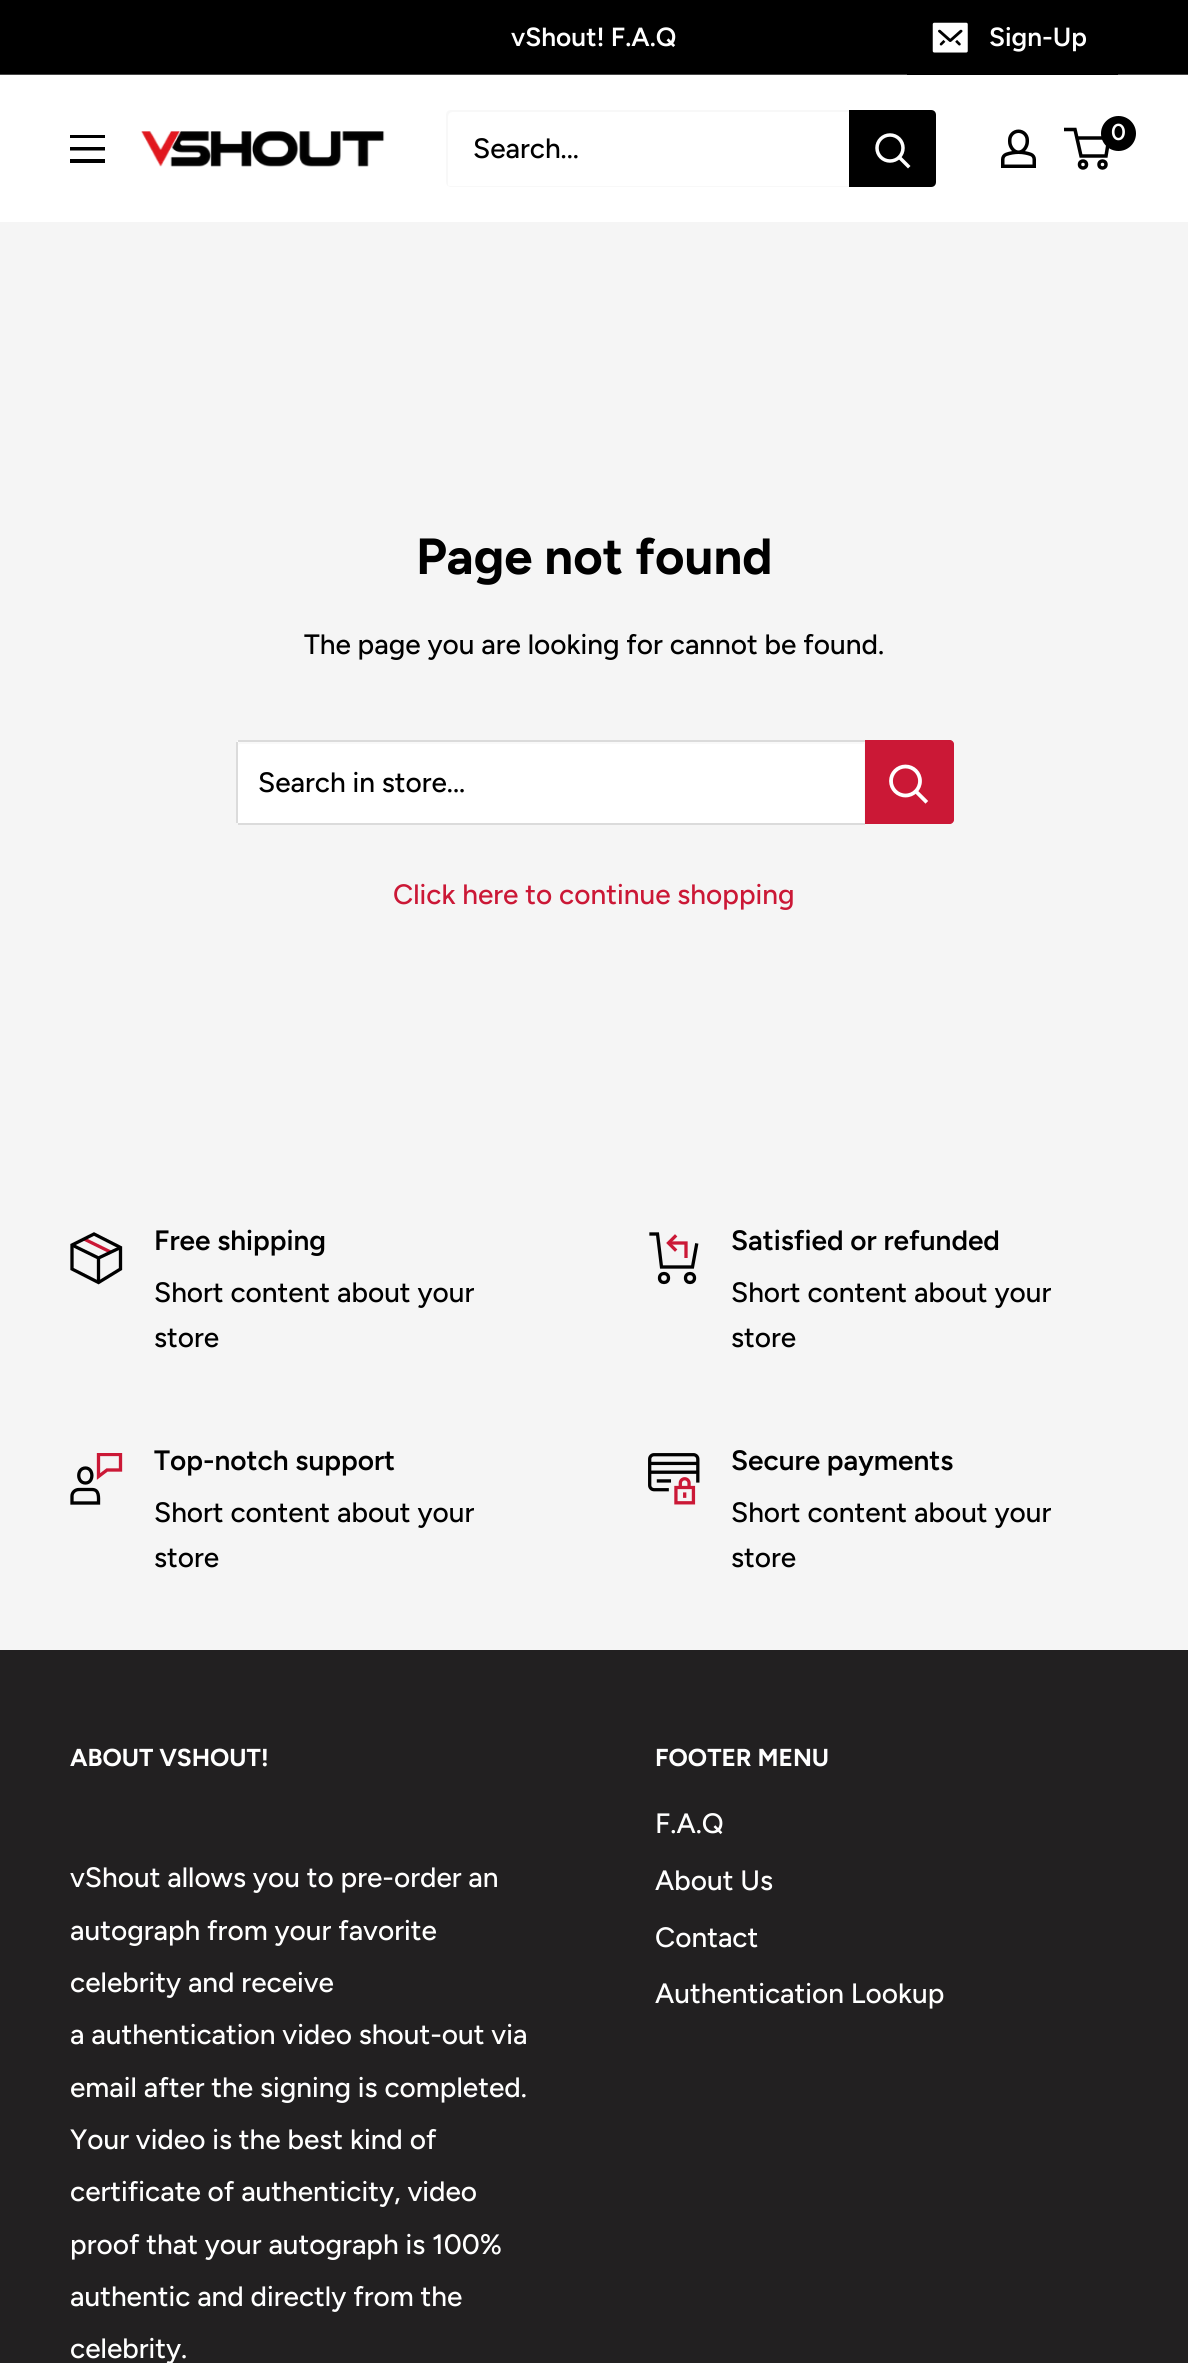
#include <cairo.h>
#include <math.h>
#include <stddef.h>


static void rgb(cairo_t *cr, int r, int g, int b)
{
	cairo_set_source_rgb(cr, r / 255.0, g / 255.0, b / 255.0);
}

static void face(cairo_t *cr, const char *family, double size, int italic, int bold)
{
	cairo_select_font_face(cr, family, italic ? CAIRO_FONT_SLANT_ITALIC : CAIRO_FONT_SLANT_NORMAL,
		bold ? CAIRO_FONT_WEIGHT_BOLD : CAIRO_FONT_WEIGHT_NORMAL);
	cairo_set_font_size(cr, size);
}

static void label(cairo_t *cr, double x, double y, const char *s)
{
	cairo_move_to(cr, x, y);
	cairo_show_text(cr, s);
}

static void rect(cairo_t *cr, double x, double y, double w, double h)
{
	cairo_rectangle(cr, x, y, w, h);
	cairo_fill(cr);
}

static void image(cairo_t *cr, const char *path, double x, double y, double w, double h)
{
	cairo_surface_t *image = cairo_image_surface_create_from_png(path);
	cairo_save(cr);
	cairo_set_source_surface(cr, image, x, y);
	cairo_rectangle(cr, x, y, w, h);
	cairo_fill(cr);
	cairo_restore(cr);
	cairo_surface_destroy(image);
}

static void draw(cairo_t *cr) {
	rgb(cr, 245, 245, 245);
	cairo_paint(cr);
	rgb(cr, 0, 0, 0);
	rect(cr, 0, 0, 1188, 74);
	rgb(cr, 70, 70, 70);
	rect(cr, 0, 74, 1188, 1);
	face(cr, "Figtree SemiBold", 26.25, 0, 0);
	rgb(cr, 255, 255, 255);
	label(cr, 511, 46, "vShout! F.A.Q");
	rgb(cr, 0, 0, 0);
	rect(cr, 907, 74, 211, 1);
	image(cr, "image0.png", 932, 22, 36, 31);
	rgb(cr, 255, 255, 255);
	label(cr, 989, 46, "Sign-Up");
	rect(cr, 0, 75, 1188, 147);
	rgb(cr, 0, 0, 0);
	cairo_set_fill_rule(cr, CAIRO_FILL_RULE_EVEN_ODD);
	cairo_new_path(cr);
	cairo_move_to(cr, 70, 159);
	cairo_line_to(cr, 105, 159);
	cairo_line_to(cr, 105, 163);
	cairo_line_to(cr, 70, 163);
	cairo_close_path(cr);
	cairo_move_to(cr, 70, 135);
	cairo_line_to(cr, 105, 135);
	cairo_line_to(cr, 105, 138);
	cairo_line_to(cr, 70, 138);
	cairo_close_path(cr);
	cairo_move_to(cr, 70, 147);
	cairo_line_to(cr, 105, 147);
	cairo_line_to(cr, 105, 150.5);
	cairo_line_to(cr, 70, 150.5);
	cairo_close_path(cr);
	cairo_fill(cr);
	image(cr, "image1.png", 141, 131, 244, 36);
	rgb(cr, 248, 248, 248);
	cairo_set_fill_rule(cr, CAIRO_FILL_RULE_WINDING);
	cairo_new_path(cr);
	cairo_move_to(cr, 447, 185);
	cairo_curve_to(cr, 448, 186, 449, 187, 451, 187);
	cairo_line_to(cr, 931, 187);
	cairo_curve_to(cr, 934, 187, 936, 185, 936, 182);
	cairo_line_to(cr, 936, 115);
	cairo_curve_to(cr, 936, 113, 935, 111, 933, 110);
	cairo_line_to(cr, 934, 114);
	cairo_line_to(cr, 934, 180);
	cairo_curve_to(cr, 934, 183, 932, 186, 929, 186);
	cairo_line_to(cr, 450, 186);
	cairo_close_path(cr);
	cairo_fill(cr);
	cairo_set_source_rgba(cr, 0.91, 0.91, 0.91, 0.3);
	cairo_new_path(cr);
	cairo_move_to(cr, 453, 112);
	cairo_line_to(cr, 933, 112);
	cairo_line_to(cr, 935, 112);
	cairo_curve_to(cr, 934, 111, 933, 110, 931, 110);
	cairo_line_to(cr, 451, 110);
	cairo_curve_to(cr, 448, 110, 446, 112, 446, 115);
	cairo_line_to(cr, 446, 182);
	cairo_curve_to(cr, 446, 184, 447, 185, 448, 186);
	cairo_line_to(cr, 448, 184);
	cairo_line_to(cr, 448, 117);
	cairo_curve_to(cr, 448, 114, 450, 112, 453, 112);
	cairo_close_path(cr);
	cairo_fill(cr);
	face(cr, "Figtree Medium", 28, 0, 0);
	rgb(cr, 0, 0, 0);
	label(cr, 473, 158, "Search...");
	cairo_new_path(cr);
	cairo_move_to(cr, 849, 110);
	cairo_line_to(cr, 931, 110);
	cairo_curve_to(cr, 934, 110, 936, 112, 936, 115);
	cairo_line_to(cr, 936, 182);
	cairo_curve_to(cr, 936, 185, 934, 187, 931, 187);
	cairo_line_to(cr, 849, 187);
	cairo_close_path(cr);
	cairo_fill(cr);
	cairo_new_path(cr);
	cairo_move_to(cr, 908, 166);
	cairo_line_to(cr, 899.5, 157.5);
	rgb(cr, 255, 255, 255);
	cairo_set_line_width(cr, 3.5);
	cairo_set_line_cap(cr, CAIRO_LINE_CAP_SQUARE);
	cairo_stroke(cr);
	cairo_arc(cr, 890, 148, 13, 0, 2 * M_PI);
	cairo_set_line_cap(cr, CAIRO_LINE_CAP_BUTT);
	cairo_stroke(cr);
	image(cr, "image2.png", 1001, 129, 35, 39);
	cairo_arc(cr, 1083, 164.5, 3.5, 0, 2 * M_PI);
	rgb(cr, 0, 0, 0);
	cairo_stroke(cr);
	cairo_arc(cr, 1102.5, 164.5, 3.5, 0, 2 * M_PI);
	cairo_stroke(cr);
	cairo_new_path(cr);
	cairo_move_to(cr, 1077, 138);
	cairo_line_to(cr, 1109, 138);
	cairo_line_to(cr, 1106, 156);
	cairo_line_to(cr, 1081, 156);
	cairo_line_to(cr, 1075, 129.5);
	cairo_line_to(cr, 1064, 129.5);
	cairo_stroke(cr);
	cairo_arc(cr, 1118.5, 133.5, 17.5, 0, 2 * M_PI);
	cairo_fill(cr);
	face(cr, "Figtree SemiBold", 23, 0, 0);
	rgb(cr, 255, 255, 255);
	label(cr, 1111, 140, "0");
	face(cr, "Figtree", 50.75, 0, 1);
	rgb(cr, 0, 0, 0);
	label(cr, 416, 574, "Page not found");
	face(cr, "Figtree Medium", 28, 0, 0);
	label(cr, 304, 654, "The page you are looking for cannot be found.");
	rgb(cr, 255, 255, 255);
	cairo_new_path(cr);
	cairo_move_to(cr, 240, 740);
	cairo_line_to(cr, 865, 740);
	cairo_line_to(cr, 865, 824);
	cairo_line_to(cr, 240, 824);
	cairo_curve_to(cr, 238, 824, 236, 822, 236, 820);
	cairo_line_to(cr, 236, 744);
	cairo_curve_to(cr, 236, 742, 238, 740, 240, 740);
	cairo_close_path(cr);
	cairo_fill(cr);
	rgb(cr, 249, 249, 249);
	cairo_new_path(cr);
	cairo_move_to(cr, 240, 744);
	cairo_line_to(cr, 864, 744);
	cairo_line_to(cr, 864, 823);
	cairo_line_to(cr, 865, 823);
	cairo_line_to(cr, 865, 742);
	cairo_line_to(cr, 240, 742);
	cairo_curve_to(cr, 238, 742, 238, 744, 238, 746);
	cairo_curve_to(cr, 238, 745, 239, 744, 240, 744);
	cairo_close_path(cr);
	cairo_fill(cr);
	rgb(cr, 219, 219, 219);
	rect(cr, 238, 740, 627, 2);
	rect(cr, 238, 823, 627, 2);
	rect(cr, 236, 742, 2, 81);
	rgb(cr, 0, 0, 0);
	label(cr, 258, 792, "Search in store...");
	rgb(cr, 203, 24, 54);
	cairo_new_path(cr);
	cairo_move_to(cr, 865, 740);
	cairo_line_to(cr, 950, 740);
	cairo_curve_to(cr, 952, 740, 954, 742, 954, 744);
	cairo_line_to(cr, 954, 820);
	cairo_curve_to(cr, 954, 822, 952, 824, 950, 824);
	cairo_line_to(cr, 865, 824);
	cairo_close_path(cr);
	cairo_fill(cr);
	cairo_new_path(cr);
	cairo_move_to(cr, 925.5, 801);
	cairo_line_to(cr, 916, 791.5);
	rgb(cr, 255, 255, 255);
	cairo_set_line_width(cr, 3.8);
	cairo_set_line_cap(cr, CAIRO_LINE_CAP_SQUARE);
	cairo_stroke(cr);
	cairo_arc(cr, 905.5, 781, 14.5, 0, 2 * M_PI);
	cairo_set_line_cap(cr, CAIRO_LINE_CAP_BUTT);
	cairo_stroke(cr);
	rgb(cr, 203, 24, 54);
	label(cr, 393, 904, "Click here to continue shopping");
	cairo_new_path(cr);
	cairo_move_to(cr, 84, 1239);
	cairo_line_to(cr, 110.5, 1252);
	cairo_set_line_width(cr, 3.3);
	cairo_stroke(cr);
	cairo_new_path(cr);
	cairo_move_to(cr, 120.5, 1247.5);
	cairo_line_to(cr, 98.5, 1258);
	cairo_line_to(cr, 72, 1245);
	cairo_move_to(cr, 98.5, 1258);
	cairo_line_to(cr, 98.5, 1282.5);
	rgb(cr, 0, 0, 0);
	cairo_stroke(cr);
	cairo_new_path(cr);
	cairo_move_to(cr, 120.5, 1247.5);
	cairo_line_to(cr, 120.5, 1269);
	cairo_line_to(cr, 98.5, 1282.5);
	cairo_line_to(cr, 72, 1269);
	cairo_line_to(cr, 72, 1245);
	cairo_line_to(cr, 94, 1234);
	cairo_close_path(cr);
	cairo_set_line_cap(cr, CAIRO_LINE_CAP_SQUARE);
	cairo_stroke(cr);
	face(cr, "Figtree SemiBold", 28, 0, 0);
	label(cr, 154, 1250, "Free shipping");
	face(cr, "Figtree Medium", 28, 0, 0);
	label(cr, 154, 1302, "Short content about your");
	label(cr, 154, 1347, "store");
	cairo_new_path(cr);
	cairo_move_to(cr, 668.5, 1243);
	cairo_line_to(cr, 686, 1243);
	cairo_line_to(cr, 686, 1258);
	rgb(cr, 203, 24, 54);
	cairo_set_line_cap(cr, CAIRO_LINE_CAP_BUTT);
	cairo_stroke(cr);
	cairo_new_path(cr);
	cairo_move_to(cr, 675, 1249.5);
	cairo_line_to(cr, 668.5, 1243);
	cairo_line_to(cr, 675, 1236.5);
	cairo_set_line_cap(cr, CAIRO_LINE_CAP_SQUARE);
	cairo_stroke(cr);
	cairo_new_path(cr);
	cairo_move_to(cr, 696.5, 1245);
	cairo_line_to(cr, 692.5, 1267);
	cairo_line_to(cr, 661.5, 1267);
	cairo_line_to(cr, 657.5, 1234);
	cairo_line_to(cr, 651, 1234);
	rgb(cr, 0, 0, 0);
	cairo_stroke(cr);
	cairo_arc(cr, 664, 1278, 4.5, 0, 2 * M_PI);
	cairo_set_line_cap(cr, CAIRO_LINE_CAP_BUTT);
	cairo_stroke(cr);
	cairo_arc(cr, 690, 1278, 4.5, 0, 2 * M_PI);
	cairo_stroke(cr);
	face(cr, "Figtree SemiBold", 28, 0, 0);
	label(cr, 731, 1250, "Satisfied or refunded");
	face(cr, "Figtree Medium", 28, 0, 0);
	label(cr, 731, 1302, "Short content about your");
	label(cr, 731, 1347, "store");
	cairo_new_path(cr);
	cairo_move_to(cr, 92, 1489.5);
	cairo_line_to(cr, 79, 1489.5);
	cairo_curve_to(cr, 75, 1489.5, 72, 1492.5, 72, 1496);
	cairo_line_to(cr, 72, 1503);
	cairo_line_to(cr, 98.5, 1503);
	cairo_curve_to(cr, 98.5, 1497.5, 99.5, 1489.5, 92, 1489.5);
	cairo_close_path(cr);
	cairo_move_to(cr, 85.5, 1483);
	cairo_curve_to(cr, 76.5, 1483, 76.5, 1468, 85.5, 1468);
	cairo_curve_to(cr, 94, 1468, 94, 1483, 85.5, 1483);
	cairo_close_path(cr);
	cairo_set_line_cap(cr, CAIRO_LINE_CAP_SQUARE);
	cairo_stroke(cr);
	cairo_save(cr);
	cairo_rectangle(cr, 70, 1453, 53, 52);
	cairo_clip(cr);
	cairo_new_path(cr);
	cairo_move_to(cr, 98.5, 1454.5);
	cairo_line_to(cr, 98.5, 1476.5);
	cairo_line_to(cr, 107, 1470);
	cairo_line_to(cr, 120.5, 1470);
	cairo_line_to(cr, 120.5, 1454.5);
	cairo_close_path(cr);
	rgb(cr, 203, 24, 54);
	cairo_stroke(cr);
	cairo_restore(cr);
	face(cr, "Figtree SemiBold", 28, 0, 0);
	label(cr, 154, 1470, "Top-notch support");
	face(cr, "Figtree Medium", 28, 0, 0);
	label(cr, 154, 1522, "Short content about your");
	label(cr, 154, 1567, "store");
	image(cr, "image3.png", 648, 1453, 52, 52);
	face(cr, "Figtree SemiBold", 28, 0, 0);
	label(cr, 731, 1470, "Secure payments");
	face(cr, "Figtree Medium", 28, 0, 0);
	label(cr, 731, 1522, "Short content about your");
	label(cr, 731, 1567, "store");
	rgb(cr, 34, 32, 33);
	rect(cr, 0, 1650, 1188, 713);
	face(cr, "Figtree", 24.5, 0, 1);
	rgb(cr, 255, 255, 255);
	label(cr, 70, 1766, "ABOUT VSHOUT!");
	face(cr, "Figtree Medium", 28, 0, 0);
	label(cr, 70, 1887, "vShout allows you to pre-order an");
	label(cr, 70, 1940, "autograph from your favorite");
	label(cr, 70, 1992, "celebrity and receive");
	label(cr, 70, 2044, "a authentication video shout-out via");
	label(cr, 70, 2097, "email after the signing is completed.");
	label(cr, 70, 2149, "Your video is the best kind of");
	label(cr, 70, 2201, "certificate of authenticity, video");
	label(cr, 70, 2254, "proof that your autograph is 100%");
	label(cr, 70, 2306, "authentic and directly from the");
	label(cr, 70, 2358, "celebrity.");
	face(cr, "Figtree", 24.5, 0, 1);
	label(cr, 655, 1766, "FOOTER MENU");
	face(cr, "Figtree Medium", 28, 0, 0);
	label(cr, 655, 1833, "F.A.Q");
	label(cr, 655, 1890, "About Us");
	label(cr, 655, 1947, "Contact");
	label(cr, 655, 2003, "Authentication Lookup");
}

int main(void) {
	cairo_surface_t *surface = cairo_image_surface_create(CAIRO_FORMAT_RGB24, 1188, 2363);
	cairo_t *cr = cairo_create(surface);
	cairo_font_options_t *options = cairo_font_options_create();
	cairo_font_options_set_hint_metrics(options, CAIRO_HINT_METRICS_OFF);
	cairo_font_options_set_hint_style(options, CAIRO_HINT_STYLE_NONE);
	cairo_set_font_options(cr, options);
	cairo_set_miter_limit(cr, 4);
	draw(cr);
	cairo_surface_write_to_png(surface, "render.png");
	cairo_font_options_destroy(options);
	cairo_destroy(cr);
	cairo_surface_destroy(surface);
	return 0;
}
